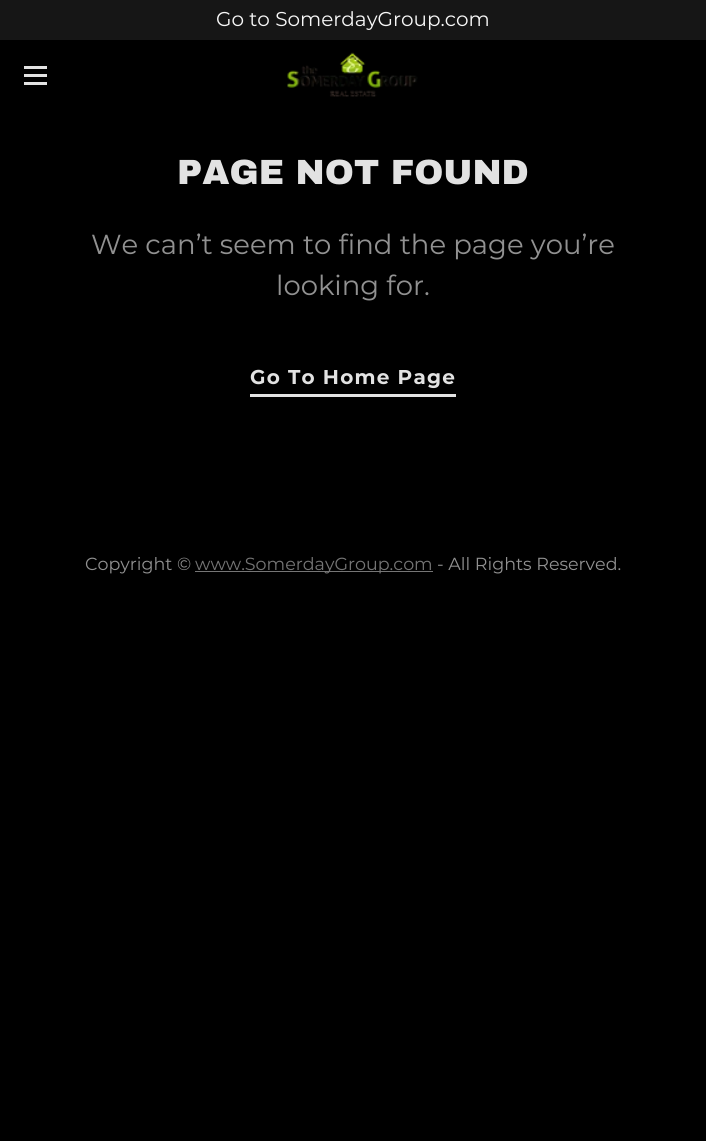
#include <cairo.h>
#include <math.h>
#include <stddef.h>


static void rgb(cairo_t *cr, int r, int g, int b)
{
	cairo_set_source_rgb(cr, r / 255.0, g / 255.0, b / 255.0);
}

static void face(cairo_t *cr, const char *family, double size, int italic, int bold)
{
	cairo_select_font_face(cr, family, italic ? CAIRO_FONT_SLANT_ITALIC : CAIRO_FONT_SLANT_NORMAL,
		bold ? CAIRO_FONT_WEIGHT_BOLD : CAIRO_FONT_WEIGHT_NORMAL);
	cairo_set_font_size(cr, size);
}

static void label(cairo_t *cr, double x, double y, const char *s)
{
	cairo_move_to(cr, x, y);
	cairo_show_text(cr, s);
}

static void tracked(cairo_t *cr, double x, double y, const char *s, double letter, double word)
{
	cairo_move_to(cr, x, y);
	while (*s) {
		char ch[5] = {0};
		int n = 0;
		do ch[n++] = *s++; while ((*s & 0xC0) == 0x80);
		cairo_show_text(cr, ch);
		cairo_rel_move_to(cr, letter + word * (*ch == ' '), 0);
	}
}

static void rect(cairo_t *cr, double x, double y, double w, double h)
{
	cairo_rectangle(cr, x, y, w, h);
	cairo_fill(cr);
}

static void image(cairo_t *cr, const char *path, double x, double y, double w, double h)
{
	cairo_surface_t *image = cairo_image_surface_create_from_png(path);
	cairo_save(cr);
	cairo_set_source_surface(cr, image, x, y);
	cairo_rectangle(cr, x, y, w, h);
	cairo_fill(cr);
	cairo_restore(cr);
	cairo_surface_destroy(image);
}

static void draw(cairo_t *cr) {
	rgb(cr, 0, 0, 0);
	cairo_paint(cr);
	rgb(cr, 22, 22, 22);
	rect(cr, 0, 0, 706, 40);
	face(cr, "Montserrat", 20, 0, 0);
	rgb(cr, 247, 247, 247);
	label(cr, 216, 26, "Go to SomerdayGroup.com");
	rgb(cr, 226, 226, 226);
	rect(cr, 24, 66, 23, 3);
	rect(cr, 24, 74, 23, 3);
	rect(cr, 24, 82, 23, 3);
	image(cr, "image0.png", 287, 52, 131, 45);
	face(cr, "Archivo Black Black", 35, 0, 0);
	label(cr, 177, 184, "PAGE NOT FOUND");
	face(cr, "Montserrat", 27.5, 0, 0);
	rgb(cr, 145, 145, 145);
	label(cr, 91, 254, "We can’t seem to find the page you’re");
	label(cr, 276, 295, "looking for.");
	rgb(cr, 226, 226, 226);
	rect(cr, 250, 394, 206, 3);
	face(cr, "Montserrat", 20, 0, 1);
	tracked(cr, 250, 384, "Go To Home Page", 1.25, 0);
	face(cr, "Montserrat", 17.5, 0, 0);
	rgb(cr, 145, 145, 145);
	label(cr, 85, 570, "Copyright ©");
	rgb(cr, 117, 117, 117);
	rect(cr, 195, 571, 238, 1);
	label(cr, 195, 570, "www.SomerdayGroup.com");
	rgb(cr, 145, 145, 145);
	label(cr, 437, 570, "- All Rights Reserved.");
}

int main(void) {
	cairo_surface_t *surface = cairo_image_surface_create(CAIRO_FORMAT_RGB24, 706, 1141);
	cairo_t *cr = cairo_create(surface);
	cairo_font_options_t *options = cairo_font_options_create();
	cairo_font_options_set_hint_metrics(options, CAIRO_HINT_METRICS_OFF);
	cairo_font_options_set_hint_style(options, CAIRO_HINT_STYLE_NONE);
	cairo_set_font_options(cr, options);
	cairo_set_miter_limit(cr, 4);
	draw(cr);
	cairo_surface_write_to_png(surface, "render.png");
	cairo_font_options_destroy(options);
	cairo_destroy(cr);
	cairo_surface_destroy(surface);
	return 0;
}
